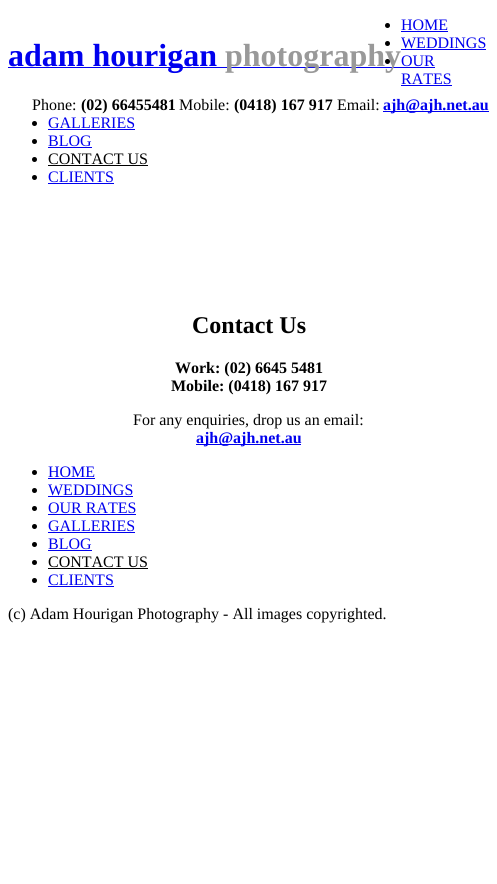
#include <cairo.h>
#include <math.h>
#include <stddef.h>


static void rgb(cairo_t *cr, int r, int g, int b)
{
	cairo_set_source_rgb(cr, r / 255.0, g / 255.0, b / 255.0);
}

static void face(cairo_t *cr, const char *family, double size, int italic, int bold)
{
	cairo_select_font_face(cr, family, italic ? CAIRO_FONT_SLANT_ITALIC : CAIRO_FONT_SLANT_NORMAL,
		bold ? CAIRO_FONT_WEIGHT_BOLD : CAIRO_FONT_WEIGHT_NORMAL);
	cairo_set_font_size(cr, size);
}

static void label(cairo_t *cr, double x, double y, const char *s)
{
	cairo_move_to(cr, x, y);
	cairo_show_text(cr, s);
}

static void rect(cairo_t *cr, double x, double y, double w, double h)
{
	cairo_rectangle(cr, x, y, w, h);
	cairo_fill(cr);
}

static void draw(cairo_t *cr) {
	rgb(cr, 255, 255, 255);
	cairo_paint(cr);
	rgb(cr, 0, 0, 0);
	cairo_arc(cr, 387.5, 25.5, 2.5, 0, 2 * M_PI);
	cairo_fill(cr);
	face(cr, "Liberation Serif", 16, 0, 0);
	rgb(cr, 0, 0, 238);
	label(cr, 401, 30, "HOME");
	rect(cr, 401, 31, 47, 1);
	rect(cr, 8, 67, 427, 1);
	face(cr, "Liberation Serif", 32, 0, 1);
	rgb(cr, 153, 153, 153);
	label(cr, 225, 66, "photography");
	rgb(cr, 0, 0, 0);
	cairo_new_path(cr);
	cairo_arc(cr, 387.5, 43.5, 2.5, 0, 2 * M_PI);
	cairo_fill(cr);
	face(cr, "Liberation Serif", 16, 0, 0);
	rgb(cr, 0, 0, 238);
	label(cr, 401, 48, "WEDDINGS");
	rect(cr, 401, 49, 85, 1);
	rgb(cr, 0, 0, 0);
	cairo_new_path(cr);
	cairo_arc(cr, 387.5, 61.5, 2.5, 0, 2 * M_PI);
	cairo_fill(cr);
	rgb(cr, 0, 0, 238);
	label(cr, 401, 66, "OUR");
	label(cr, 401, 84, "RATES");
	rect(cr, 401, 85, 51, 1);
	rgb(cr, 0, 0, 0);
	cairo_new_path(cr);
	cairo_arc(cr, 34.5, 123.5, 2.5, 0, 2 * M_PI);
	cairo_fill(cr);
	rgb(cr, 0, 0, 238);
	label(cr, 48, 128, "GALLERIES");
	rect(cr, 48, 129, 87, 1);
	rgb(cr, 0, 0, 0);
	cairo_new_path(cr);
	cairo_arc(cr, 34.5, 141.5, 2.5, 0, 2 * M_PI);
	cairo_fill(cr);
	rgb(cr, 0, 0, 238);
	label(cr, 48, 146, "BLOG");
	rect(cr, 48, 147, 44, 1);
	rgb(cr, 0, 0, 0);
	cairo_new_path(cr);
	cairo_arc(cr, 34.5, 159.5, 2.5, 0, 2 * M_PI);
	cairo_fill(cr);
	label(cr, 48, 164, "CONTACT US");
	rect(cr, 48, 165, 100, 1);
	cairo_new_path(cr);
	cairo_arc(cr, 34.5, 177.5, 2.5, 0, 2 * M_PI);
	cairo_fill(cr);
	rgb(cr, 0, 0, 238);
	label(cr, 48, 182, "CLIENTS");
	rect(cr, 48, 183, 66, 1);
	face(cr, "Liberation Serif", 32, 0, 1);
	label(cr, 8, 66, "adam hourigan");
	face(cr, "Liberation Serif", 16, 0, 0);
	rgb(cr, 0, 0, 0);
	label(cr, 32, 110, "Phone:");
	face(cr, "Liberation Serif", 16, 0, 1);
	label(cr, 81, 110, "(02) 66455481");
	face(cr, "Liberation Serif", 16, 0, 0);
	label(cr, 179, 110, "Mobile:");
	face(cr, "Liberation Serif", 16, 0, 1);
	label(cr, 234, 110, "(0418) 167 917");
	face(cr, "Liberation Serif", 16, 0, 0);
	label(cr, 337, 110, "Email:");
	rgb(cr, 0, 0, 238);
	rect(cr, 383, 111, 106, 1);
	face(cr, "Liberation Serif", 16, 0, 1);
	label(cr, 383, 110, "ajh@ajh.net.au");
	face(cr, "Liberation Serif", 24, 0, 1);
	rgb(cr, 0, 0, 0);
	label(cr, 192, 333, "Contact Us");
	face(cr, "Liberation Serif", 16, 0, 1);
	label(cr, 175, 373, "Work: (02) 6645 5481");
	label(cr, 171, 391, "Mobile: (0418) 167 917");
	face(cr, "Liberation Serif", 16, 0, 0);
	label(cr, 133, 425, "For any enquiries, drop us an email:");
	rgb(cr, 0, 0, 238);
	rect(cr, 196, 444, 105, 1);
	face(cr, "Liberation Serif", 16, 0, 1);
	label(cr, 196, 443, "ajh@ajh.net.au");
	rgb(cr, 0, 0, 0);
	cairo_new_path(cr);
	cairo_arc(cr, 34.5, 472.5, 2.5, 0, 2 * M_PI);
	cairo_fill(cr);
	face(cr, "Liberation Serif", 16, 0, 0);
	rgb(cr, 0, 0, 238);
	label(cr, 48, 477, "HOME");
	rect(cr, 48, 478, 47, 1);
	rgb(cr, 0, 0, 0);
	cairo_new_path(cr);
	cairo_arc(cr, 34.5, 490.5, 2.5, 0, 2 * M_PI);
	cairo_fill(cr);
	rgb(cr, 0, 0, 238);
	label(cr, 48, 495, "WEDDINGS");
	rect(cr, 48, 496, 85, 1);
	rgb(cr, 0, 0, 0);
	cairo_new_path(cr);
	cairo_arc(cr, 34.5, 508.5, 2.5, 0, 2 * M_PI);
	cairo_fill(cr);
	rgb(cr, 0, 0, 238);
	label(cr, 48, 513, "OUR RATES");
	rect(cr, 48, 514, 88, 1);
	rgb(cr, 0, 0, 0);
	cairo_new_path(cr);
	cairo_arc(cr, 34.5, 526.5, 2.5, 0, 2 * M_PI);
	cairo_fill(cr);
	rgb(cr, 0, 0, 238);
	label(cr, 48, 531, "GALLERIES");
	rect(cr, 48, 532, 87, 1);
	rgb(cr, 0, 0, 0);
	cairo_new_path(cr);
	cairo_arc(cr, 34.5, 544.5, 2.5, 0, 2 * M_PI);
	cairo_fill(cr);
	rgb(cr, 0, 0, 238);
	label(cr, 48, 549, "BLOG");
	rect(cr, 48, 550, 44, 1);
	rgb(cr, 0, 0, 0);
	cairo_new_path(cr);
	cairo_arc(cr, 34.5, 562.5, 2.5, 0, 2 * M_PI);
	cairo_fill(cr);
	label(cr, 48, 567, "CONTACT US");
	rect(cr, 48, 568, 100, 1);
	cairo_new_path(cr);
	cairo_arc(cr, 34.5, 580.5, 2.5, 0, 2 * M_PI);
	cairo_fill(cr);
	rgb(cr, 0, 0, 238);
	label(cr, 48, 585, "CLIENTS");
	rect(cr, 48, 586, 66, 1);
	rgb(cr, 0, 0, 0);
	label(cr, 8, 619, "(c) Adam Hourigan Photography - All images copyrighted.");
}

int main(void) {
	cairo_surface_t *surface = cairo_image_surface_create(CAIRO_FORMAT_RGB24, 497, 884);
	cairo_t *cr = cairo_create(surface);
	cairo_font_options_t *options = cairo_font_options_create();
	cairo_font_options_set_hint_metrics(options, CAIRO_HINT_METRICS_OFF);
	cairo_font_options_set_hint_style(options, CAIRO_HINT_STYLE_NONE);
	cairo_set_font_options(cr, options);
	cairo_set_miter_limit(cr, 4);
	draw(cr);
	cairo_surface_write_to_png(surface, "render.png");
	cairo_font_options_destroy(options);
	cairo_destroy(cr);
	cairo_surface_destroy(surface);
	return 0;
}
